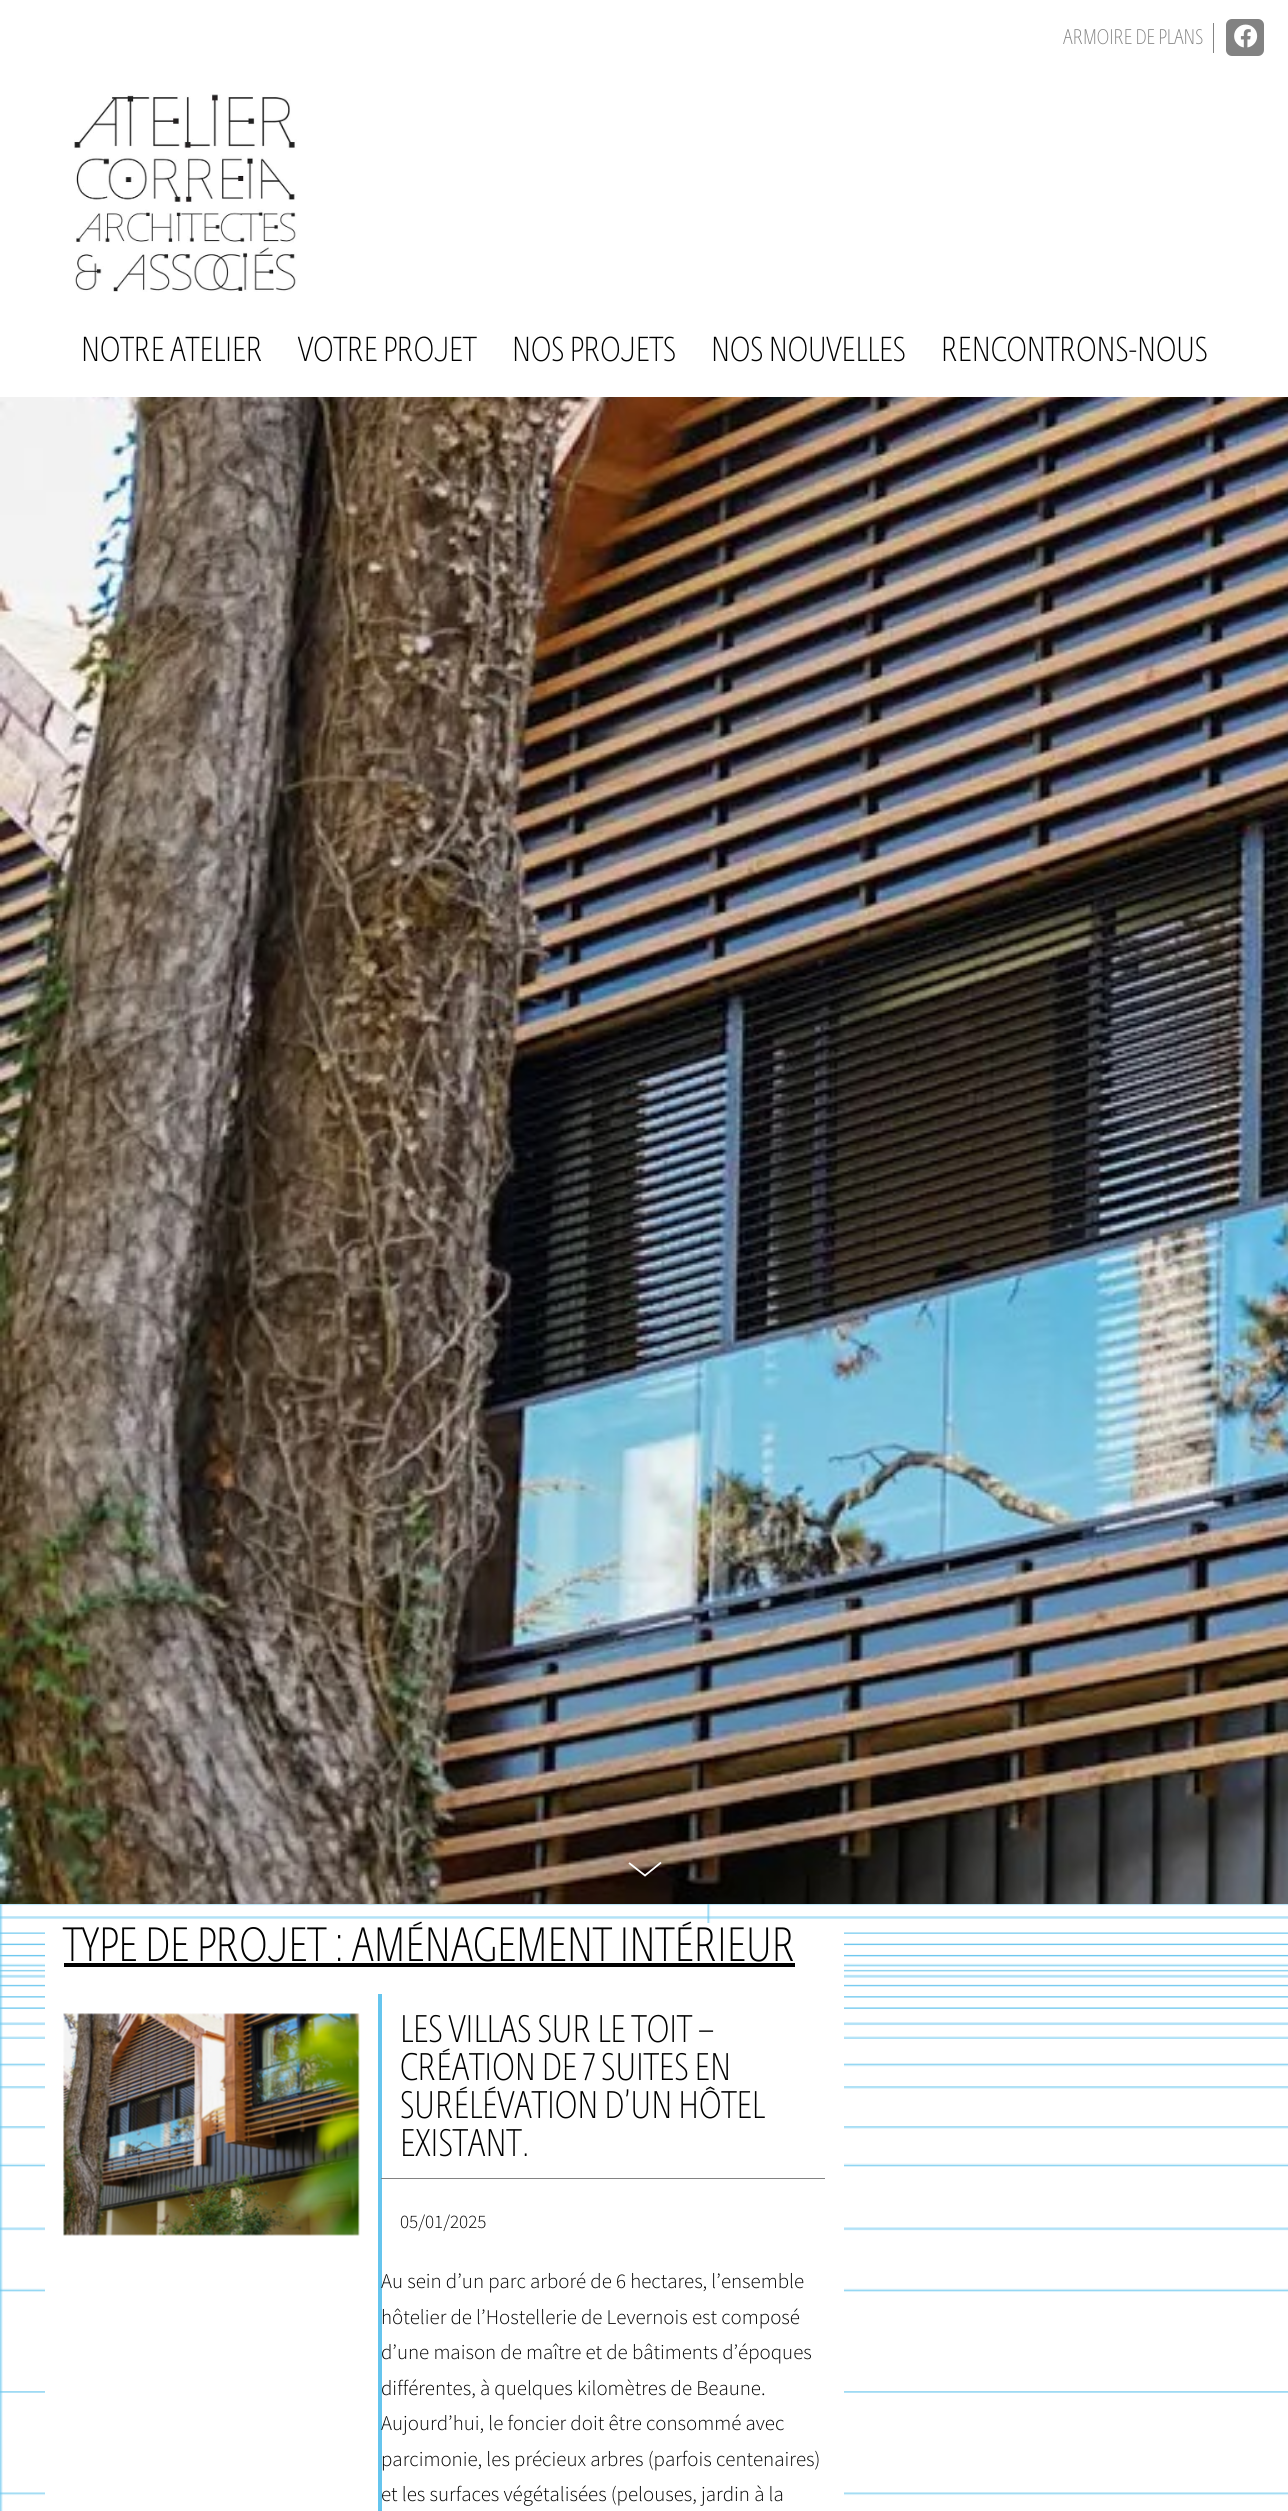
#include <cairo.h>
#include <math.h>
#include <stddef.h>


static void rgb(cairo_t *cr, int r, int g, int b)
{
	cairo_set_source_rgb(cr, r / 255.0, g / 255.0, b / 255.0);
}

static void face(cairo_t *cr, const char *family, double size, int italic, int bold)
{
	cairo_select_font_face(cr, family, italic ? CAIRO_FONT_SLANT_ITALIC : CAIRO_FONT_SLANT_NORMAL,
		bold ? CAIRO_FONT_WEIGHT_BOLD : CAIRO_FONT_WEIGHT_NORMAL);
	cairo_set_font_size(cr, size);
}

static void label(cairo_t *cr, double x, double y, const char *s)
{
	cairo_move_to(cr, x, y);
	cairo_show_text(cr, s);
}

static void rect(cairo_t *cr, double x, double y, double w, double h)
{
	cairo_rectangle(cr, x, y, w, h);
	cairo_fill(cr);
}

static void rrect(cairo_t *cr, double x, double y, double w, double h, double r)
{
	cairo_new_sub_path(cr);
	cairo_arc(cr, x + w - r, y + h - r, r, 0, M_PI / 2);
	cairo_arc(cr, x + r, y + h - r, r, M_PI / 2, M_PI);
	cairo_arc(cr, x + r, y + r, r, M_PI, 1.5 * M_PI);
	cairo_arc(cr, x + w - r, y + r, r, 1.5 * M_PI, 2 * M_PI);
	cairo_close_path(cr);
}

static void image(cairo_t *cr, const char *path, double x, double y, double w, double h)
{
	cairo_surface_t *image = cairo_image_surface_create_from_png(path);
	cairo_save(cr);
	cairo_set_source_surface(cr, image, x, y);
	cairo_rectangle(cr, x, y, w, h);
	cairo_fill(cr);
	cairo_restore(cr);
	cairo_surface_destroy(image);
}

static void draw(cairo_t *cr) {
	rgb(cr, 255, 255, 255);
	cairo_paint(cr);
	image(cr, "image0.png", 0, 1904, 1288, 607);
	face(cr, "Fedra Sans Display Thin", 20.9, 0, 0);
	rgb(cr, 130, 130, 130);
	label(cr, 1063, 44, "ARMOIRE DE PLANS");
	rect(cr, 1213, 23, 1, 30);
	rrect(cr, 1226, 19, 38, 37, 6);
	cairo_fill(cr);
	image(cr, "image1.png", 1234, 24, 24, 24);
	image(cr, "image2.png", 74, 94, 223, 198);
	face(cr, "Fedra Sans Display Thin", 34.25, 0, 0);
	rgb(cr, 0, 0, 0);
	label(cr, 81, 361, "NOTRE ATELIER");
	label(cr, 298, 361, "VOTRE PROJET");
	label(cr, 512, 361, "NOS PROJETS");
	label(cr, 711, 361, "NOS NOUVELLES");
	label(cr, 941, 361, "RENCONTRONS-NOUS");
	image(cr, "image3.png", 0, 397, 1288, 1507);
	cairo_new_path(cr);
	cairo_move_to(cr, 629, 1863);
	cairo_line_to(cr, 645, 1875.5);
	cairo_line_to(cr, 661, 1862.5);
	rgb(cr, 255, 255, 255);
	cairo_set_line_width(cr, 1.8);
	cairo_stroke(cr);
	rect(cr, 45, 1923, 799, 588);
	face(cr, "Fedra Sans Display Thin", 47.5, 0, 0);
	rgb(cr, 0, 0, 0);
	label(cr, 63, 1961, "TYPE DE PROJET : AMÉNAGEMENT INTÉRIEUR");
	rect(cr, 64, 1963, 731, 4);
	image(cr, "image4.png", 63, 2013, 297, 223);
	rgb(cr, 102, 197, 238);
	rect(cr, 378, 1994, 4, 517);
	rgb(cr, 130, 130, 130);
	rect(cr, 381, 2178, 444, 1);
	face(cr, "Fedra Sans Display Thin", 38, 0, 0);
	rgb(cr, 0, 0, 0);
	label(cr, 400, 2042, "LES VILLAS SUR LE TOIT –");
	label(cr, 400, 2080, "CRÉATION DE 7 SUITES EN");
	label(cr, 400, 2118, "SURÉLÉVATION D’UN HÔTEL");
	label(cr, 400, 2156, "EXISTANT.");
	face(cr, "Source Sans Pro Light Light", 19, 0, 0);
	label(cr, 400, 2228, "05/01/2025");
	face(cr, "Source Sans Pro Light Light", 20.9, 0, 0);
	label(cr, 381, 2288, "Au sein d’un parc arboré de 6 hectares, l’ensemble");
	label(cr, 381, 2324, "hôtelier de l’Hostellerie de Levernois est composé");
	label(cr, 381, 2359, "d’une maison de maître et de bâtiments d’époques");
	label(cr, 381, 2395, "différentes, à quelques kilomètres de Beaune.");
	label(cr, 381, 2430, "Aujourd’hui, le foncier doit être consommé avec");
	label(cr, 381, 2466, "parcimonie, les précieux arbres (parfois centenaires)");
	label(cr, 381, 2501, "et les surfaces végétalisées (pelouses, jardin à la");
}

int main(void) {
	cairo_surface_t *surface = cairo_image_surface_create(CAIRO_FORMAT_RGB24, 1288, 2511);
	cairo_t *cr = cairo_create(surface);
	cairo_font_options_t *options = cairo_font_options_create();
	cairo_font_options_set_hint_metrics(options, CAIRO_HINT_METRICS_OFF);
	cairo_font_options_set_hint_style(options, CAIRO_HINT_STYLE_NONE);
	cairo_set_font_options(cr, options);
	cairo_set_miter_limit(cr, 4);
	draw(cr);
	cairo_surface_write_to_png(surface, "render.png");
	cairo_font_options_destroy(options);
	cairo_destroy(cr);
	cairo_surface_destroy(surface);
	return 0;
}
